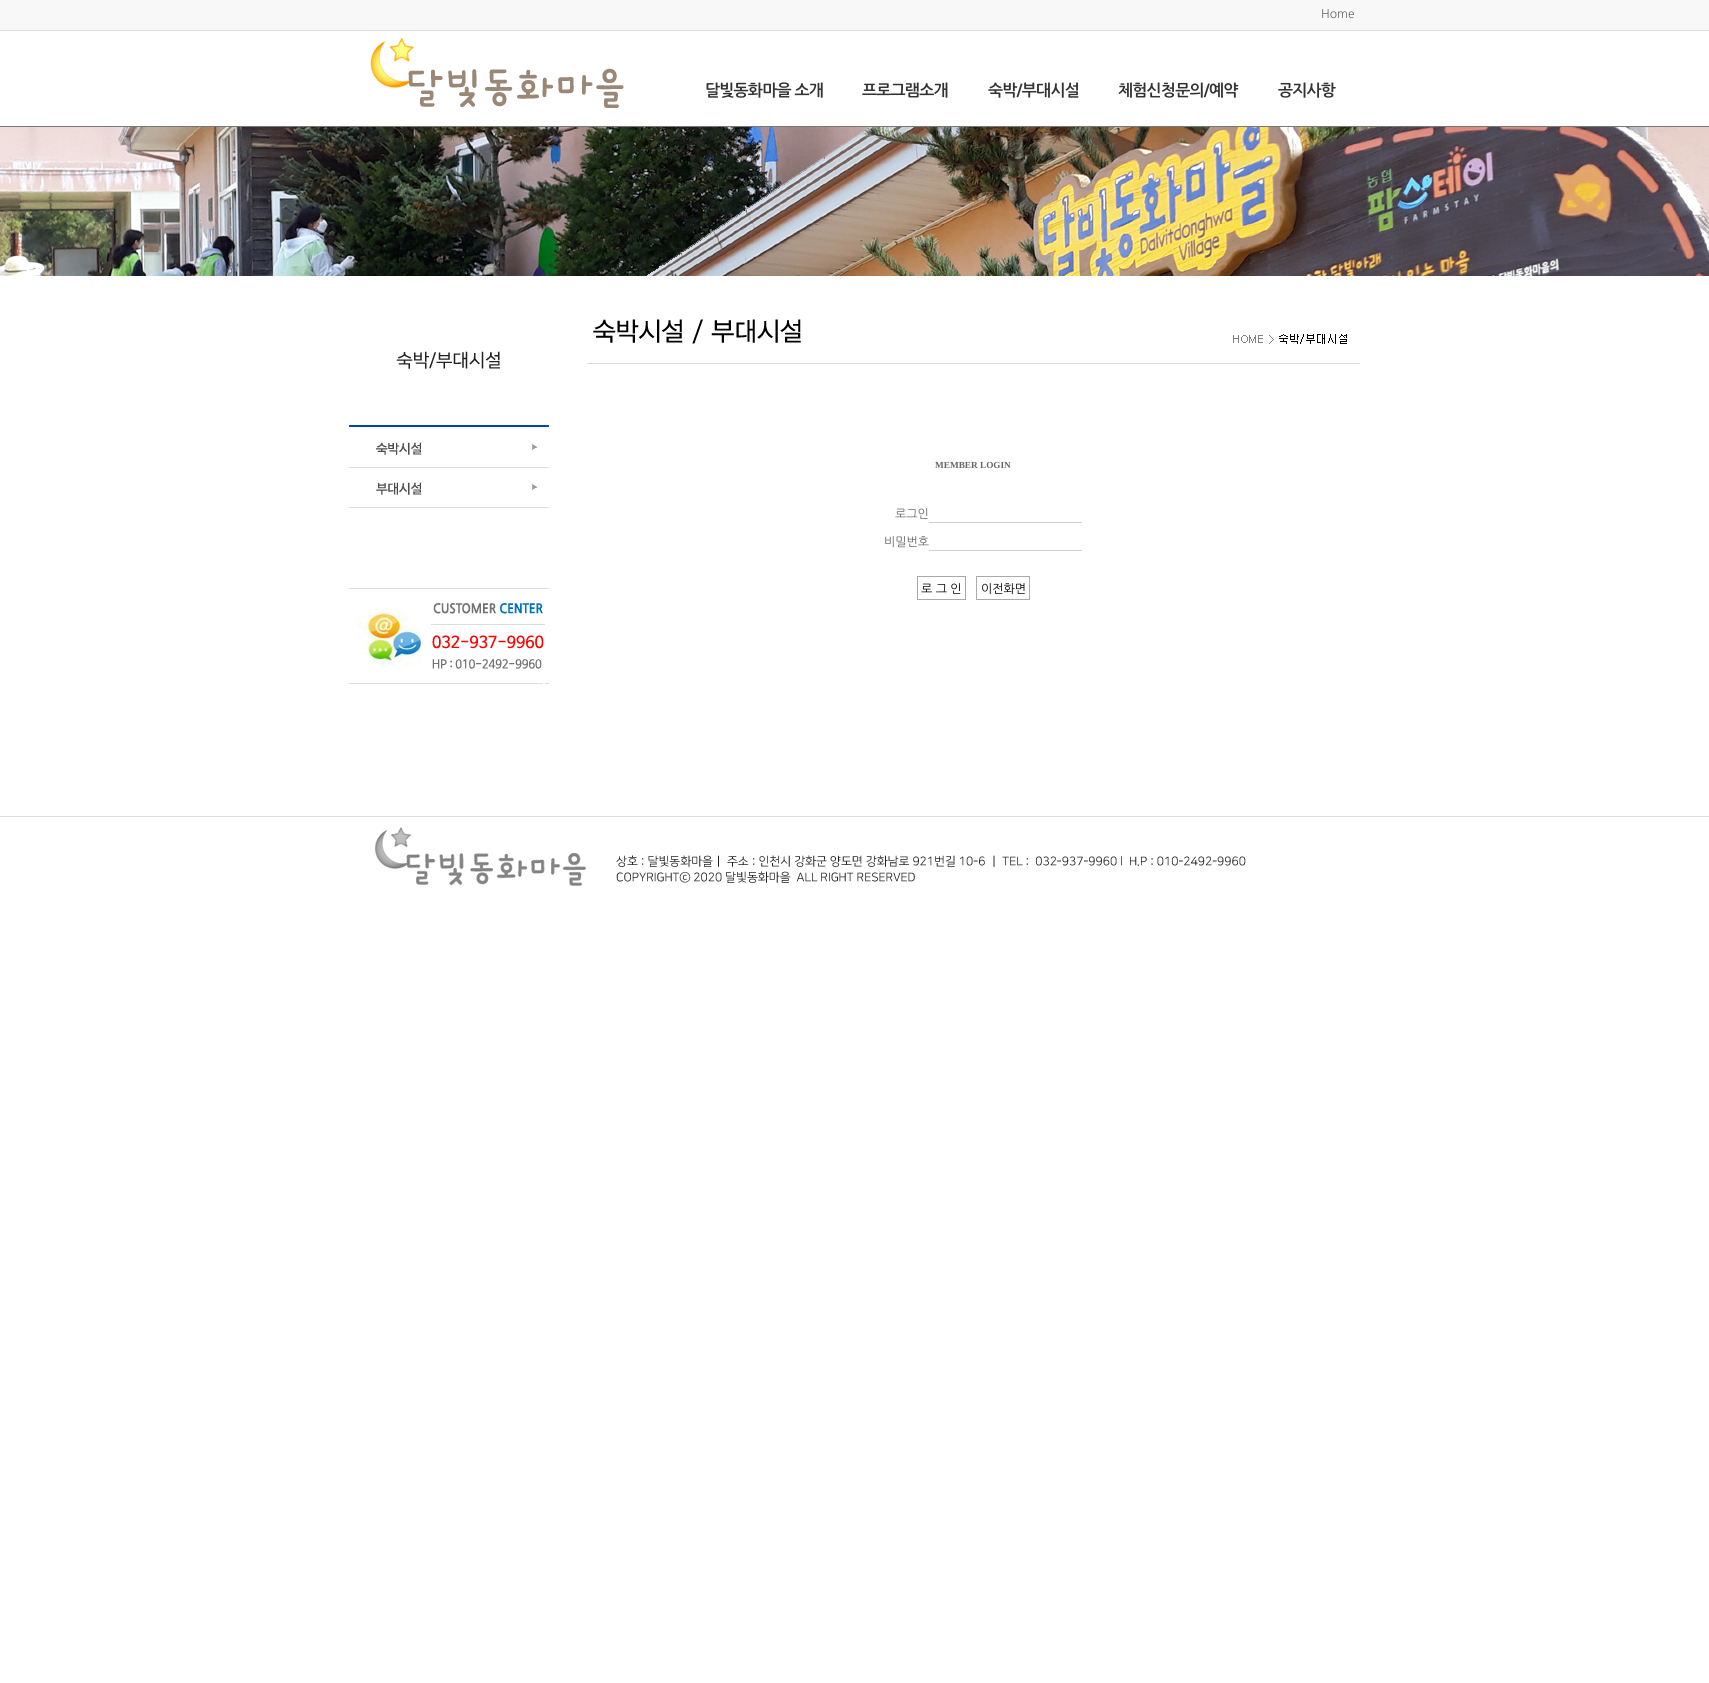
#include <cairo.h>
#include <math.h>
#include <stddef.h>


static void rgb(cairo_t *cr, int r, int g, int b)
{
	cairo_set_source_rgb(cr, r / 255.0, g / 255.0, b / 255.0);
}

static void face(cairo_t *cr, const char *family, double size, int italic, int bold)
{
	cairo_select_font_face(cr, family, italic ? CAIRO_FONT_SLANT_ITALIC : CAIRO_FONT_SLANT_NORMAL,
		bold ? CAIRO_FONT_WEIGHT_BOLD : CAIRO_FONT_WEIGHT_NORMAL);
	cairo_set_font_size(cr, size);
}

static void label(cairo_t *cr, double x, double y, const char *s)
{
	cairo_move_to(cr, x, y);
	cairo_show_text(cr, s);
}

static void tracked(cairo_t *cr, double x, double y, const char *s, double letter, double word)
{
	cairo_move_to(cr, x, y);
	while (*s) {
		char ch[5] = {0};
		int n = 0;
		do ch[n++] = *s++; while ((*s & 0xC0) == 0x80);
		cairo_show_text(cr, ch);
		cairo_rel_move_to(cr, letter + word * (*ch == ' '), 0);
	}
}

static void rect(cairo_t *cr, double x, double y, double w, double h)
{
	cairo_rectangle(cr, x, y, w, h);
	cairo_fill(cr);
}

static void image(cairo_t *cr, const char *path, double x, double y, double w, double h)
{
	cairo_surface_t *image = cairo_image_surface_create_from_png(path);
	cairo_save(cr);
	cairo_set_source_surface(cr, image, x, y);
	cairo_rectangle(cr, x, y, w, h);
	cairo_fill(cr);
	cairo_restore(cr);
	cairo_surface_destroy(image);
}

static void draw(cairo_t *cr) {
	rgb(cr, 255, 255, 255);
	cairo_paint(cr);
	image(cr, "image0.png", 0, 31, 1709, 249);
	rgb(cr, 119, 119, 119);
	rect(cr, 0, 126, 1709, 1);
	rgb(cr, 248, 248, 248);
	rect(cr, 0, 0, 1709, 30);
	rgb(cr, 221, 221, 221);
	rect(cr, 0, 30, 1709, 1);
	face(cr, "NanumGothic", 12, 0, 0);
	rgb(cr, 102, 102, 102);
	label(cr, 1321, 18, "Home");
	rgb(cr, 255, 255, 255);
	rect(cr, 536, 120, 764, 1);
	image(cr, "image1.png", 370, 37, 254, 71);
	face(cr, "NanumGothic", 16, 0, 1);
	rgb(cr, 51, 51, 51);
	tracked(cr, 705, 96, "달빛동화마을 소개", -0.75, 0);
	tracked(cr, 862, 96, "프로그램소개", -0.75, 0);
	tracked(cr, 988, 96, "숙박/부대시설", -0.75, 0);
	tracked(cr, 1118, 96, "체험신청문의/예약", -0.75, 0);
	tracked(cr, 1278, 96, "공지사항", -0.75, 0);
	image(cr, "image2.png", 349, 351, 200, 157);
	image(cr, "image3.png", 349, 588, 200, 96);
	image(cr, "image4.png", 587, 319, 773, 45);
	face(cr, "Liberation Serif", 9.25, 0, 1);
	rgb(cr, 102, 102, 102);
	label(cr, 935, 468, "MEMBER LOGIN");
	face(cr, "NanumGothic", 12, 0, 0);
	label(cr, 895, 518, "로그인");
	rgb(cr, 208, 208, 208);
	rect(cr, 929, 522, 153, 1);
	rgb(cr, 102, 102, 102);
	label(cr, 884, 546, "비밀번호");
	rgb(cr, 208, 208, 208);
	rect(cr, 929, 550, 153, 1);
	cairo_rectangle(cr, 917.5, 576.5, 48, 23);
	rgb(cr, 170, 170, 170);
	cairo_set_line_width(cr, 1);
	cairo_stroke(cr);
	rgb(cr, 0, 0, 0);
	label(cr, 921, 593, "로 그 인");
	cairo_rectangle(cr, 976.5, 576.5, 53, 23);
	rgb(cr, 170, 170, 170);
	cairo_stroke(cr);
	rgb(cr, 0, 0, 0);
	label(cr, 981, 593, "이전화면");
	rgb(cr, 221, 221, 221);
	rect(cr, 0, 816, 1709, 1);
	image(cr, "image5.png", 374, 827, 872, 59);
}

int main(void) {
	cairo_surface_t *surface = cairo_image_surface_create(CAIRO_FORMAT_RGB24, 1709, 1683);
	cairo_t *cr = cairo_create(surface);
	cairo_font_options_t *options = cairo_font_options_create();
	cairo_font_options_set_hint_metrics(options, CAIRO_HINT_METRICS_OFF);
	cairo_font_options_set_hint_style(options, CAIRO_HINT_STYLE_NONE);
	cairo_set_font_options(cr, options);
	cairo_set_miter_limit(cr, 4);
	draw(cr);
	cairo_surface_write_to_png(surface, "render.png");
	cairo_font_options_destroy(options);
	cairo_destroy(cr);
	cairo_surface_destroy(surface);
	return 0;
}
